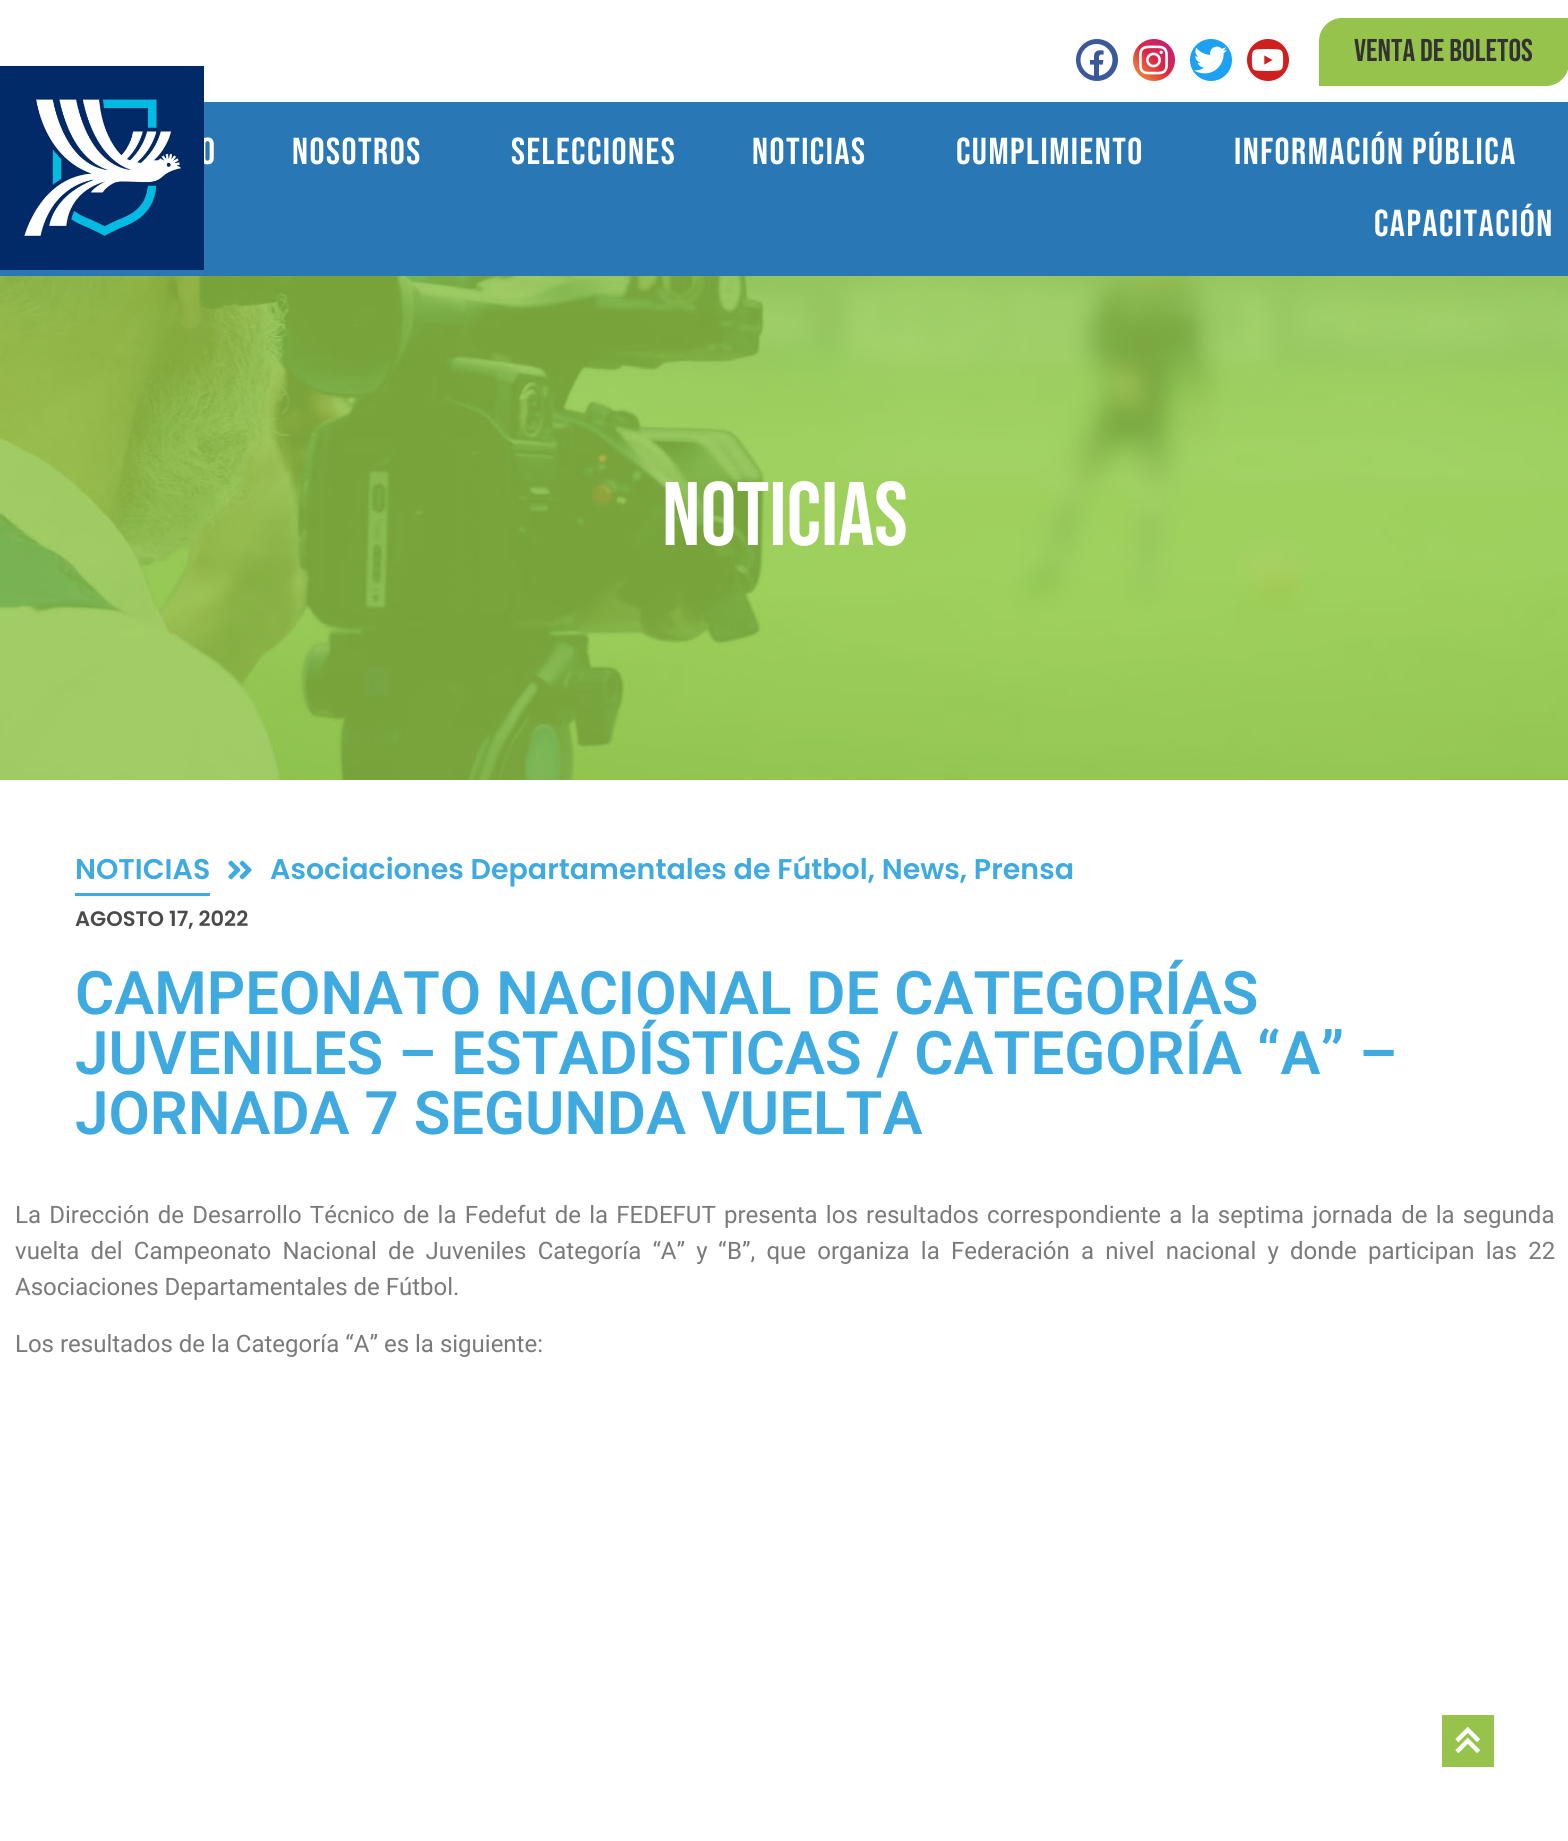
#include <cairo.h>
#include <math.h>
#include <stddef.h>


static void rgb(cairo_t *cr, int r, int g, int b)
{
	cairo_set_source_rgb(cr, r / 255.0, g / 255.0, b / 255.0);
}

static void face(cairo_t *cr, const char *family, double size, int italic, int bold)
{
	cairo_select_font_face(cr, family, italic ? CAIRO_FONT_SLANT_ITALIC : CAIRO_FONT_SLANT_NORMAL,
		bold ? CAIRO_FONT_WEIGHT_BOLD : CAIRO_FONT_WEIGHT_NORMAL);
	cairo_set_font_size(cr, size);
}

static void label(cairo_t *cr, double x, double y, const char *s)
{
	cairo_move_to(cr, x, y);
	cairo_show_text(cr, s);
}

static void tracked(cairo_t *cr, double x, double y, const char *s, double letter, double word)
{
	cairo_move_to(cr, x, y);
	while (*s) {
		char ch[5] = {0};
		int n = 0;
		do ch[n++] = *s++; while ((*s & 0xC0) == 0x80);
		cairo_show_text(cr, ch);
		cairo_rel_move_to(cr, letter + word * (*ch == ' '), 0);
	}
}

static void rect(cairo_t *cr, double x, double y, double w, double h)
{
	cairo_rectangle(cr, x, y, w, h);
	cairo_fill(cr);
}

static void image(cairo_t *cr, const char *path, double x, double y, double w, double h)
{
	cairo_surface_t *image = cairo_image_surface_create_from_png(path);
	cairo_save(cr);
	cairo_set_source_surface(cr, image, x, y);
	cairo_rectangle(cr, x, y, w, h);
	cairo_fill(cr);
	cairo_restore(cr);
	cairo_surface_destroy(image);
}

static void draw(cairo_t *cr) {
	cairo_pattern_t *gradient;
	rgb(cr, 255, 255, 255);
	cairo_paint(cr);
	rgb(cr, 41, 120, 181);
	rect(cr, 0, 102, 1568, 174);
	face(cr, "Bebas Neue", 37.5, 0, 0);
	rgb(cr, 255, 255, 255);
	tracked(cr, 200, 164, "O", 1.5, 0);
	image(cr, "image0.png", 0, 66, 204, 204);
	rgb(cr, 59, 89, 152);
	cairo_arc(cr, 1097, 60, 21, 0, 2 * M_PI);
	cairo_fill(cr);
	image(cr, "image1.png", 1080, 44, 33, 32);
	gradient = cairo_pattern_create_linear(1133, 81, 1175, 39);
	cairo_pattern_add_color_stop_rgba(gradient, 0, 0.941, 0.58, 0.2, 1);
	cairo_pattern_add_color_stop_rgba(gradient, 0.25, 0.902, 0.408, 0.235, 1);
	cairo_pattern_add_color_stop_rgba(gradient, 0.5, 0.863, 0.153, 0.263, 1);
	cairo_pattern_add_color_stop_rgba(gradient, 0.75, 0.8, 0.137, 0.4, 1);
	cairo_pattern_add_color_stop_rgba(gradient, 1, 0.737, 0.094, 0.533, 1);
	cairo_set_source(cr, gradient);
	cairo_pattern_destroy(gradient);
	cairo_arc(cr, 1154, 60, 21, 0, 2 * M_PI);
	cairo_fill(cr);
	image(cr, "image2.png", 1139, 45, 29, 30);
	rgb(cr, 29, 161, 242);
	cairo_arc(cr, 1211, 60, 21, 0, 2 * M_PI);
	cairo_fill(cr);
	image(cr, "image3.png", 1194, 46, 33, 28);
	rgb(cr, 205, 32, 31);
	cairo_arc(cr, 1268, 60, 21, 0, 2 * M_PI);
	cairo_fill(cr);
	image(cr, "image4.png", 1251, 49, 33, 22);
	rgb(cr, 149, 195, 76);
	cairo_new_path(cr);
	cairo_move_to(cr, 1342, 18);
	cairo_line_to(cr, 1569, 18);
	cairo_line_to(cr, 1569, 63);
	cairo_curve_to(cr, 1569, 75.5, 1558.5, 86, 1546, 86);
	cairo_line_to(cr, 1319, 86);
	cairo_line_to(cr, 1319, 41);
	cairo_curve_to(cr, 1319, 28.5, 1329.5, 18, 1342, 18);
	cairo_close_path(cr);
	cairo_fill(cr);
	face(cr, "Bebas Neue", 31.5, 0, 0);
	rgb(cr, 51, 51, 51);
	label(cr, 1354, 61, "Venta de boletos");
	face(cr, "Bebas Neue", 37.5, 0, 0);
	rgb(cr, 255, 255, 255);
	tracked(cr, 292, 164, "NOSOTROS", 1.5, 0);
	tracked(cr, 511, 164, "SELECCIONES", 1.5, 0);
	tracked(cr, 752, 164, "NOTICIAS", 1.5, 0);
	tracked(cr, 956, 164, "CUMPLIMIENTO", 1.5, 0);
	tracked(cr, 1234, 164, "INFORMACIÓN PÚBLICA", 1.5, 0);
	tracked(cr, 1374, 236, "CAPACITACIÓN", 1.5, 0);
	rgb(cr, 149, 195, 76);
	rect(cr, 1442, 1715, 52, 52);
	image(cr, "image5.png", 1455, 1726, 26, 28);
	image(cr, "image6.png", 0, 276, 1568, 504);
	face(cr, "Bebas Neue", 90, 0, 0);
	rgb(cr, 255, 255, 255);
	label(cr, 662, 545, "Noticias");
	rgb(cr, 63, 170, 224);
	rect(cr, 75, 893, 135, 3);
	face(cr, "Poppins SemiBold", 28.5, 0, 0);
	label(cr, 75, 879, "NOTICIAS");
	image(cr, "image7.png", 228, 860, 24, 20);
	label(cr, 270, 879, "Asociaciones Departamentales de Fútbol, News, Prensa");
	face(cr, "Poppins SemiBold", 21, 0, 0);
	rgb(cr, 75, 75, 75);
	label(cr, 75, 926, "AGOSTO 17, 2022");
	face(cr, "Roboto SemiBold", 60, 0, 0);
	rgb(cr, 63, 170, 224);
	label(cr, 75, 1014, "CAMPEONATO NACIONAL DE CATEGORÍAS");
	label(cr, 75, 1074, "JUVENILES – ESTADÍSTICAS / CATEGORÍA “A” –");
	label(cr, 75, 1134, "JORNADA 7 SEGUNDA VUELTA");
	face(cr, "Roboto", 24, 0, 0);
	rgb(cr, 122, 122, 122);
	tracked(cr, 15, 1223, "La Dirección de Desarrollo Técnico de la Fedefut de la FEDEFUT presenta los resultados correspondiente a la septima jornada de la segunda", 0, 2.3);
	tracked(cr, 15, 1259, "vuelta del Campeonato Nacional de Juveniles Categoría “A” y", 0, 5.25);
	label(cr, 718, 1259, "“");
	tracked(cr, 727, 1259, "B”, que organiza la Federación a nivel nacional y donde participan las 22", 0, 5.25);
	label(cr, 15, 1295, "Asociaciones Departamentales de Fútbol.");
	label(cr, 15, 1352, "Los resultados de la Categoría “A” es la siguiente:");
}

int main(void) {
	cairo_surface_t *surface = cairo_image_surface_create(CAIRO_FORMAT_RGB24, 1568, 1841);
	cairo_t *cr = cairo_create(surface);
	cairo_font_options_t *options = cairo_font_options_create();
	cairo_font_options_set_hint_metrics(options, CAIRO_HINT_METRICS_OFF);
	cairo_font_options_set_hint_style(options, CAIRO_HINT_STYLE_NONE);
	cairo_set_font_options(cr, options);
	cairo_set_miter_limit(cr, 4);
	draw(cr);
	cairo_surface_write_to_png(surface, "render.png");
	cairo_font_options_destroy(options);
	cairo_destroy(cr);
	cairo_surface_destroy(surface);
	return 0;
}
